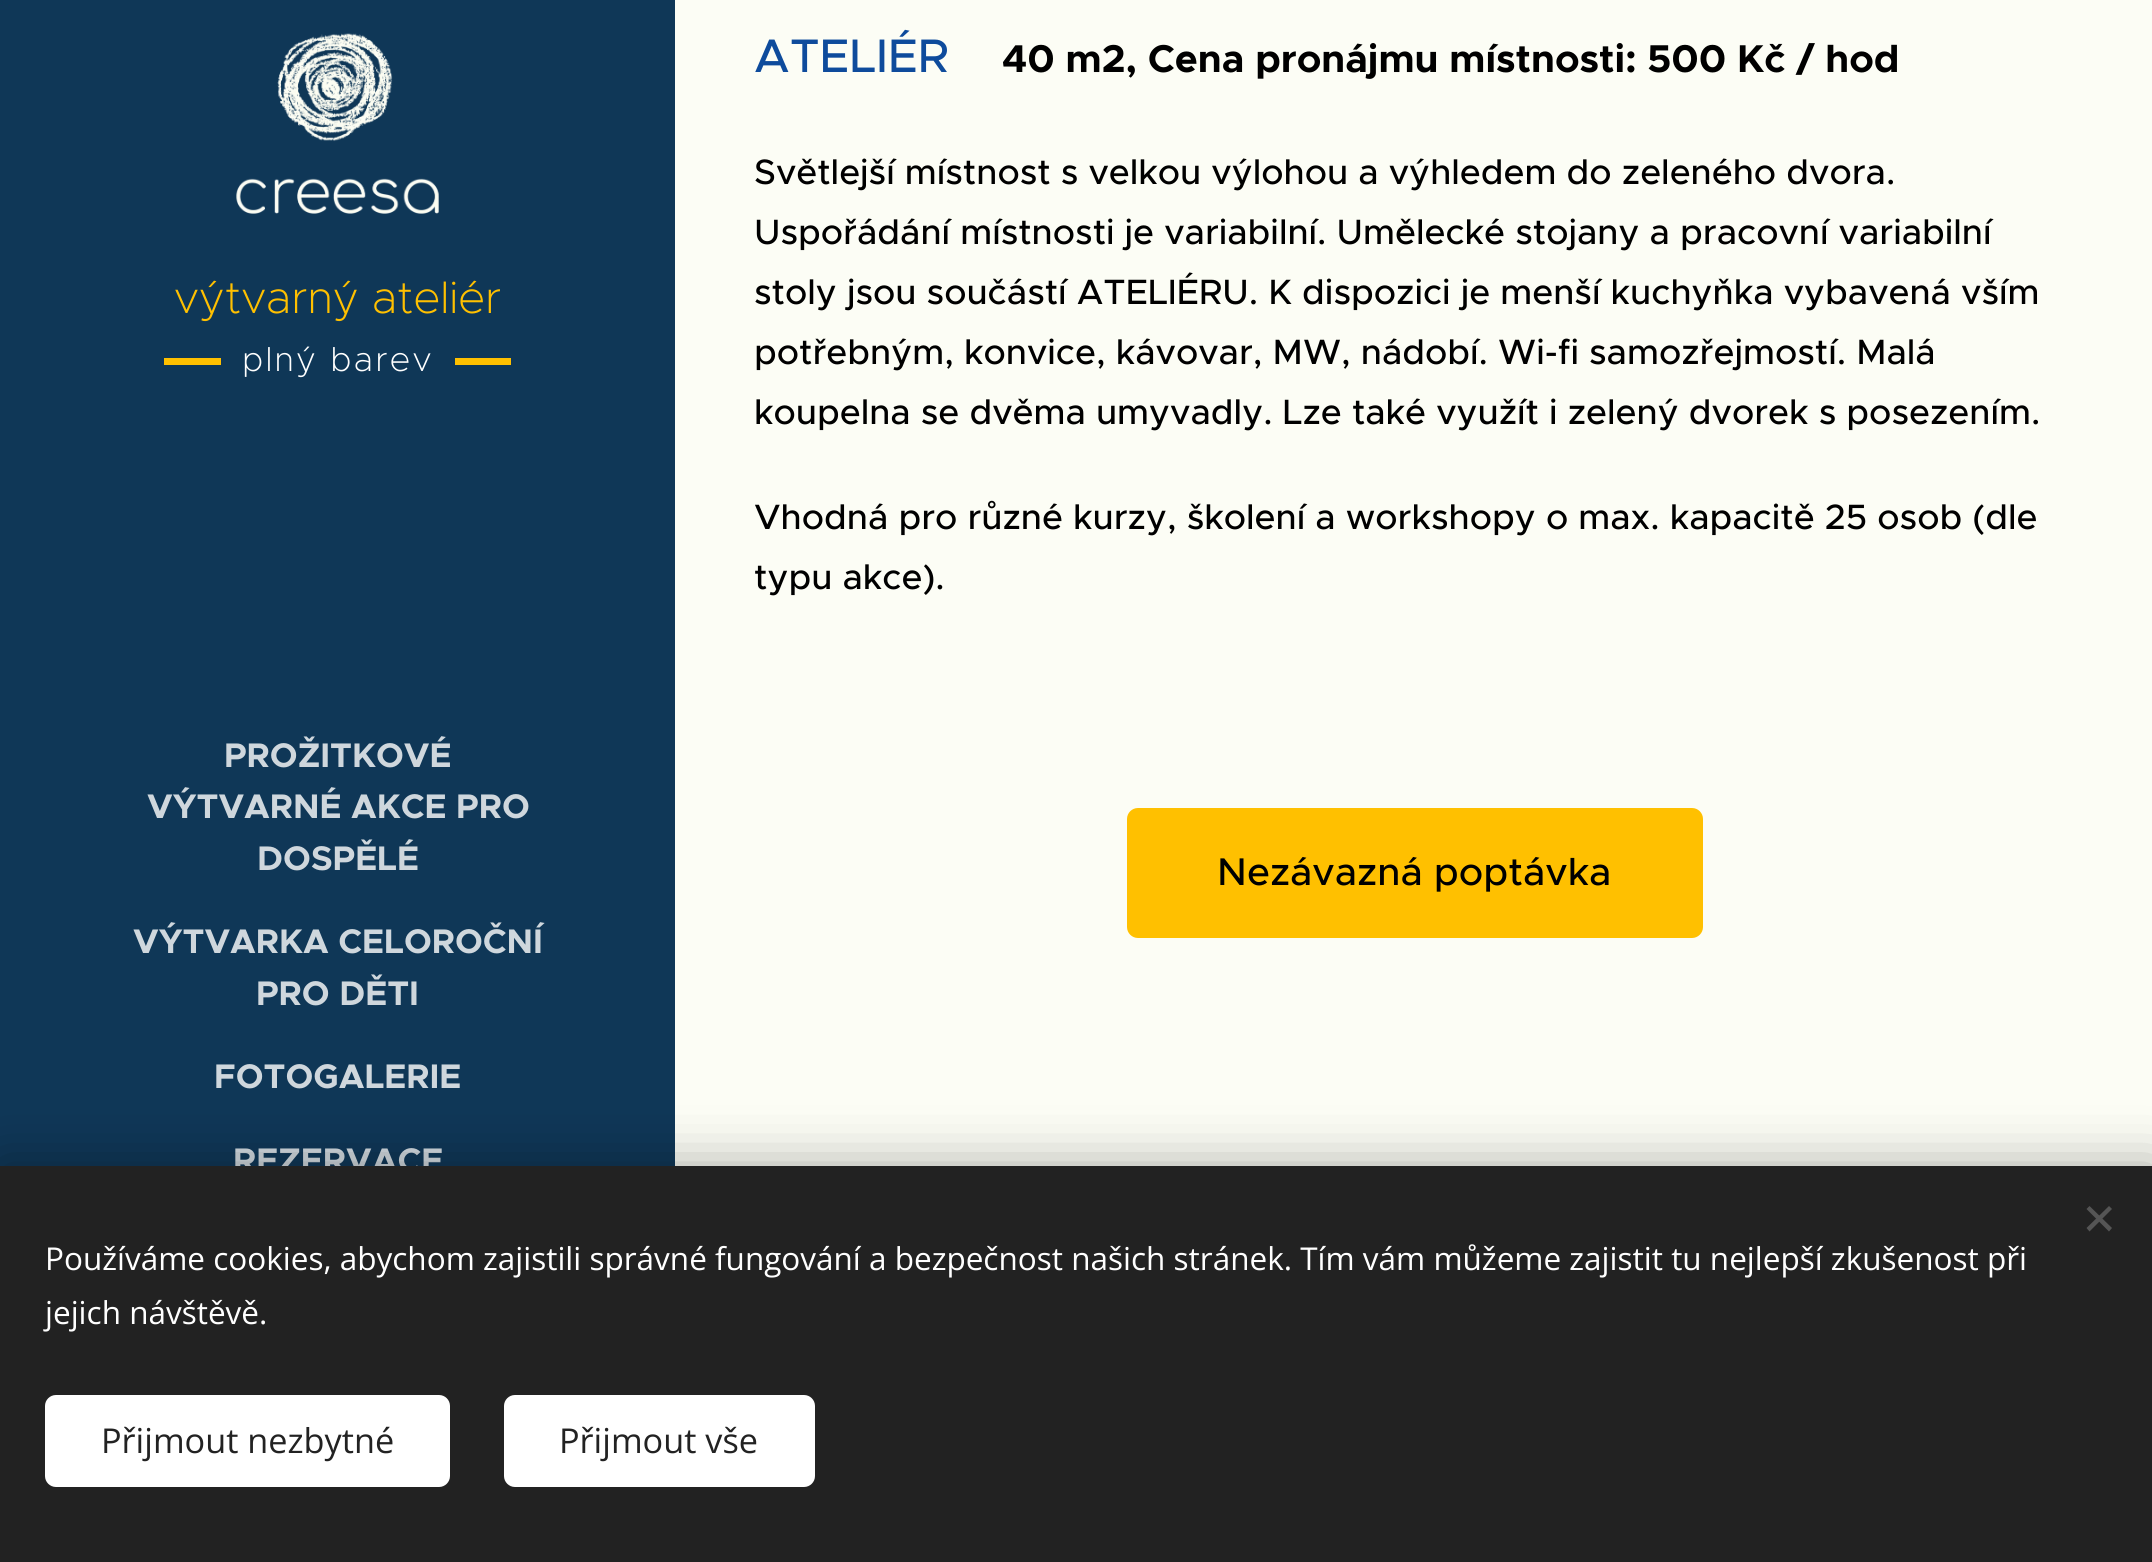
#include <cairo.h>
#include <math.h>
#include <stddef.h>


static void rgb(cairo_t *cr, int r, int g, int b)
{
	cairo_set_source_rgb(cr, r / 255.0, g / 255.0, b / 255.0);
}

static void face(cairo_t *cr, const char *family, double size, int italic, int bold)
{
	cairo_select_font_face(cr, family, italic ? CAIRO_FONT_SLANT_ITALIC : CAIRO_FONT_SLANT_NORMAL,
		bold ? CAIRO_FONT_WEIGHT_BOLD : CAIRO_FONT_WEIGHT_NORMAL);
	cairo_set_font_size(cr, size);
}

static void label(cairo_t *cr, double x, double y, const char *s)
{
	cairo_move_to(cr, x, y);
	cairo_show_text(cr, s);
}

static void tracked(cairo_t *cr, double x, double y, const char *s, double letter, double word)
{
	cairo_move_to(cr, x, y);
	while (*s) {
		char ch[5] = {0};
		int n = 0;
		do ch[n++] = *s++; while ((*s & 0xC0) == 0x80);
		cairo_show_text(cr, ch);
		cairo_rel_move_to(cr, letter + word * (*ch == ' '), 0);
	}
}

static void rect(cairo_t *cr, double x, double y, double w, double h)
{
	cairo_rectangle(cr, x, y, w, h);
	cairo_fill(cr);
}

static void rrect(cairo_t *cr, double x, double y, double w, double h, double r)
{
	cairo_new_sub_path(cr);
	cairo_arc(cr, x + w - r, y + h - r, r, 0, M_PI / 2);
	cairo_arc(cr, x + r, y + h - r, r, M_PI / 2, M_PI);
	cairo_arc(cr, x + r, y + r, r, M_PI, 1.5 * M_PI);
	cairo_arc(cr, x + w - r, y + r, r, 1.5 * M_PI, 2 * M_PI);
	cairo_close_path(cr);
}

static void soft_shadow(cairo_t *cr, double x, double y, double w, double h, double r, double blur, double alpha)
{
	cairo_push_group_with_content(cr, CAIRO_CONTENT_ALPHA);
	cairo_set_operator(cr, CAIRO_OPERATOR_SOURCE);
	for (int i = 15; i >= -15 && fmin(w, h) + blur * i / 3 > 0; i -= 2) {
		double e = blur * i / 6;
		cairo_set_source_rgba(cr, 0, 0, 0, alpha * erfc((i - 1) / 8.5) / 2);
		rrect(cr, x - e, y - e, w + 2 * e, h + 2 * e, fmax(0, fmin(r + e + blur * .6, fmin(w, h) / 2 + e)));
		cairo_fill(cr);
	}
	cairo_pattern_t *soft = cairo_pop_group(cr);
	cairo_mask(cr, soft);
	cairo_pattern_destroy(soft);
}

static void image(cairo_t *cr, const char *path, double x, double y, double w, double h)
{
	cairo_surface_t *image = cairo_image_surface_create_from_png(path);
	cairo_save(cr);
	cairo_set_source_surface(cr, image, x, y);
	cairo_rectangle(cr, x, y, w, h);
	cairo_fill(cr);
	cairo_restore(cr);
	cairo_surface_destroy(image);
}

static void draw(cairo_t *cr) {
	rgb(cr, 252, 253, 245);
	cairo_paint(cr);
	rgb(cr, 15, 55, 87);
	rect(cr, 0, 0, 675, 1166);
	image(cr, "image0.png", 236, 33, 203, 181);
	face(cr, "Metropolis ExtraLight", 45, 0, 0);
	rgb(cr, 255, 192, 0);
	label(cr, 174, 313, "výtvarný ateliér");
	rect(cr, 164, 358, 57, 7);
	face(cr, "Metropolis ExtraLight", 34.25, 0, 0);
	rgb(cr, 255, 255, 255);
	tracked(cr, 242, 371, "plný barev", 2.25, 0);
	rgb(cr, 255, 192, 0);
	rect(cr, 455, 358, 56, 7);
	face(cr, "Metropolis", 34.25, 0, 1);
	rgb(cr, 207, 215, 221);
	label(cr, 224, 767, "PROŽITKOVÉ");
	label(cr, 147, 818, "VÝTVARNÉ AKCE PRO");
	label(cr, 257, 870, "DOSPĚLÉ");
	label(cr, 133, 953, "VÝTVARKA CELOROČNÍ");
	label(cr, 256, 1005, "PRO DĚTI");
	label(cr, 214, 1088, "FOTOGALERIE");
	label(cr, 233, 1172, "REZERVACE");
	face(cr, "Metropolis Medium", 47.25, 0, 0);
	rgb(cr, 14, 75, 156);
	label(cr, 754, 72, "ATELIÉR");
	face(cr, "Metropolis", 38.9, 0, 1);
	rgb(cr, 0, 0, 0);
	label(cr, 1002, 72, "40 m2, Cena pronájmu místnosti: 500 Kč / hod");
	face(cr, "Metropolis Medium", 35.3, 0, 0);
	label(cr, 754, 184, "Světlejší místnost s velkou výlohou a výhledem do zeleného dvora.");
	label(cr, 754, 244, "Uspořádání místnosti je variabilní. Umělecké stojany a pracovní variabilní");
	label(cr, 754, 304, "stoly jsou součástí ATELIÉRU. K dispozici je menší kuchyňka vybavená vším");
	label(cr, 754, 364, "potřebným, konvice, kávovar, MW, nádobí. Wi-fi samozřejmostí. Malá");
	label(cr, 754, 424, "koupelna se dvěma umyvadly. Lze také využít i zelený dvorek s posezením.");
	label(cr, 754, 529, "Vhodná pro různé kurzy, školení a workshopy o max. kapacitě 25 osob (dle");
	label(cr, 754, 589, "typu akce).");
	rgb(cr, 255, 192, 0);
	rrect(cr, 1128, 809, 574, 128, 10);
	cairo_fill_preserve(cr);
	cairo_stroke(cr);
	face(cr, "Metropolis Medium", 38.75, 0, 0);
	rgb(cr, 0, 0, 0);
	label(cr, 1217, 885, "Nezávazná poptávka");
	rgb(cr, 0, 0, 0);
	soft_shadow(cr, 0, 1166, 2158, 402, 0, 28, 0.33);
	rgb(cr, 34, 34, 34);
	rect(cr, 0, 1166, 2152, 396);
	rgb(cr, 85, 85, 85);
	cairo_new_path(cr);
	cairo_move_to(cr, 2086.5, 1228);
	cairo_line_to(cr, 2109, 1206);
	cairo_line_to(cr, 2112, 1209);
	cairo_line_to(cr, 2089.5, 1231.5);
	cairo_close_path(cr);
	cairo_fill(cr);
	cairo_new_path(cr);
	cairo_move_to(cr, 2089.5, 1206);
	cairo_line_to(cr, 2112, 1228);
	cairo_line_to(cr, 2109, 1231.5);
	cairo_line_to(cr, 2086.5, 1209);
	cairo_close_path(cr);
	cairo_fill(cr);
	face(cr, "Open Sans", 31.5, 0, 0);
	rgb(cr, 255, 255, 255);
	label(cr, 45, 1270, "Používáme cookies, abychom zajistili správné fungování a bezpečnost našich stránek. Tím vám můžeme zajistit tu nejlepší zkušenost při");
	label(cr, 45, 1324, "jejich návštěvě.");
	rrect(cr, 45, 1395, 405, 92, 11);
	cairo_fill(cr);
	face(cr, "Open Sans", 34.25, 0, 0);
	rgb(cr, 34, 34, 34);
	label(cr, 101, 1453, "Přijmout nezbytné");
	rgb(cr, 255, 255, 255);
	rrect(cr, 504, 1395, 311, 92, 11);
	cairo_fill(cr);
	rgb(cr, 34, 34, 34);
	label(cr, 559, 1453, "Přijmout vše");
}

int main(void) {
	cairo_surface_t *surface = cairo_image_surface_create(CAIRO_FORMAT_RGB24, 2152, 1562);
	cairo_t *cr = cairo_create(surface);
	cairo_font_options_t *options = cairo_font_options_create();
	cairo_font_options_set_hint_metrics(options, CAIRO_HINT_METRICS_OFF);
	cairo_font_options_set_hint_style(options, CAIRO_HINT_STYLE_NONE);
	cairo_set_font_options(cr, options);
	cairo_set_miter_limit(cr, 4);
	draw(cr);
	cairo_surface_write_to_png(surface, "render.png");
	cairo_font_options_destroy(options);
	cairo_destroy(cr);
	cairo_surface_destroy(surface);
	return 0;
}
